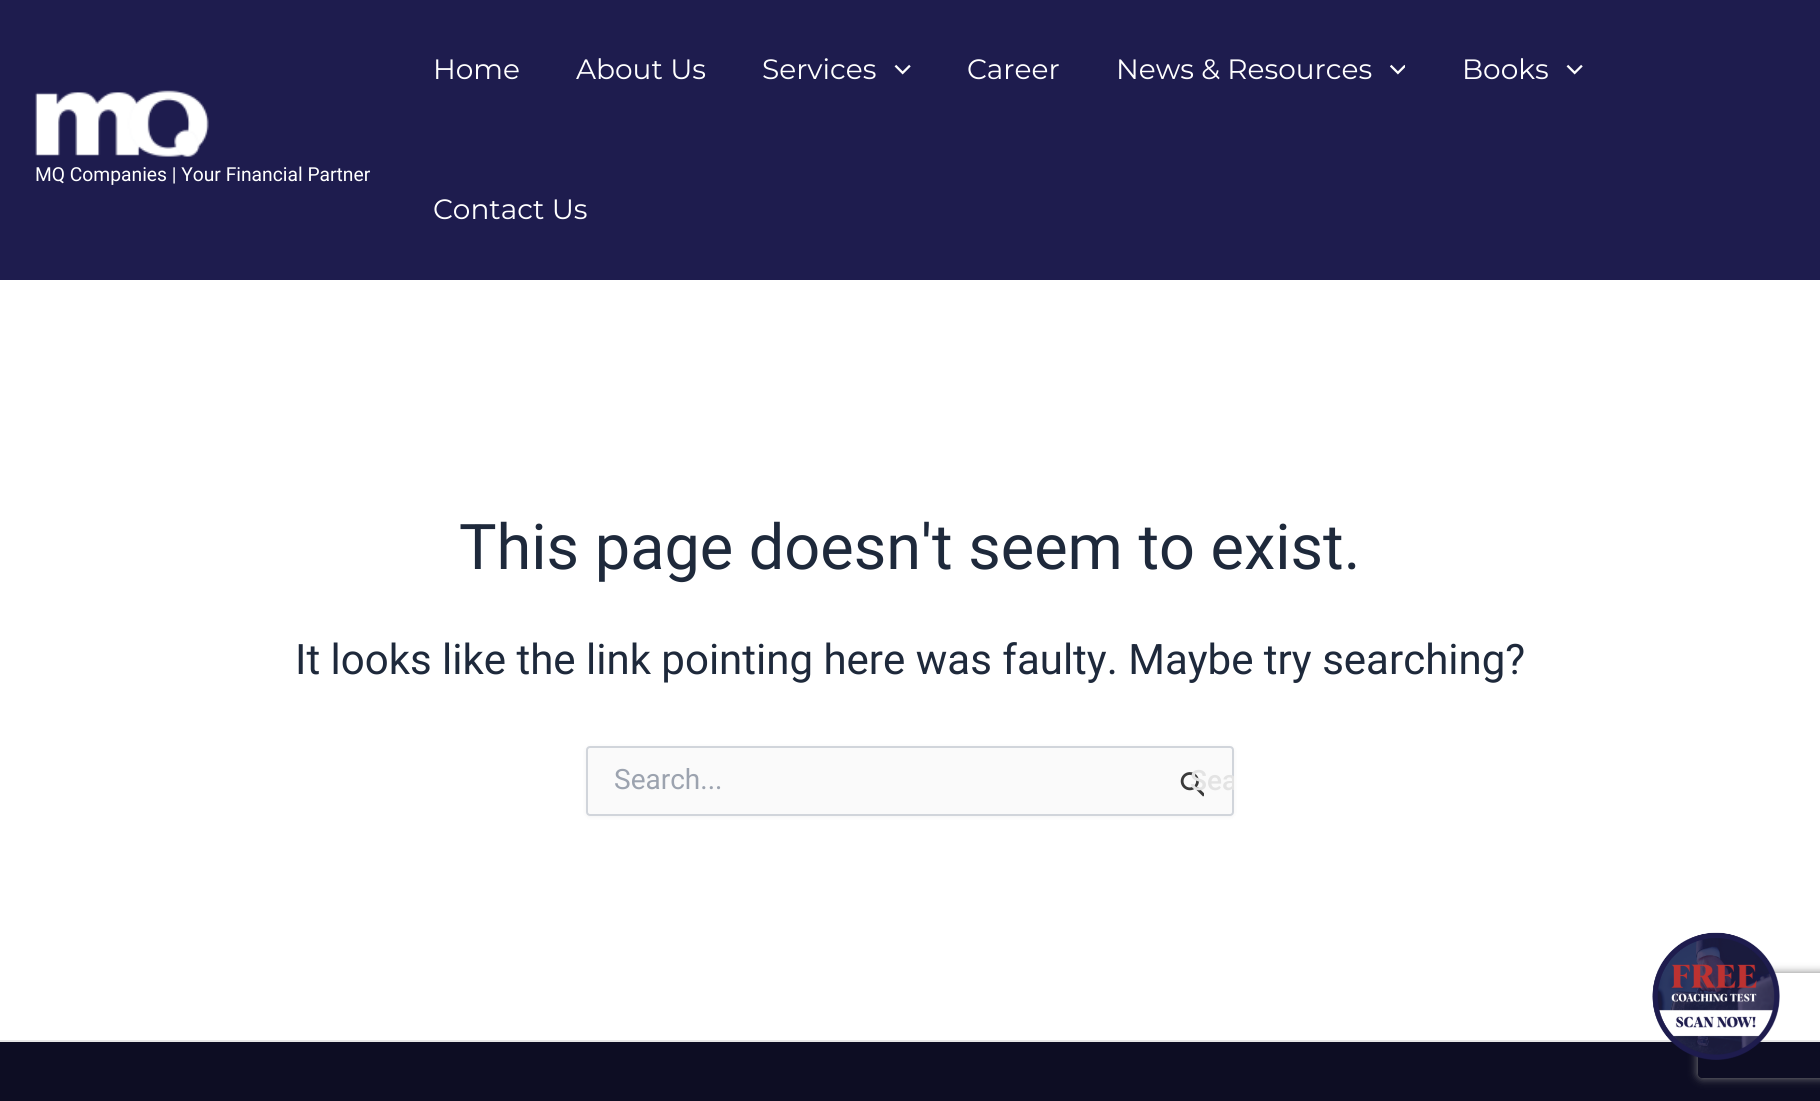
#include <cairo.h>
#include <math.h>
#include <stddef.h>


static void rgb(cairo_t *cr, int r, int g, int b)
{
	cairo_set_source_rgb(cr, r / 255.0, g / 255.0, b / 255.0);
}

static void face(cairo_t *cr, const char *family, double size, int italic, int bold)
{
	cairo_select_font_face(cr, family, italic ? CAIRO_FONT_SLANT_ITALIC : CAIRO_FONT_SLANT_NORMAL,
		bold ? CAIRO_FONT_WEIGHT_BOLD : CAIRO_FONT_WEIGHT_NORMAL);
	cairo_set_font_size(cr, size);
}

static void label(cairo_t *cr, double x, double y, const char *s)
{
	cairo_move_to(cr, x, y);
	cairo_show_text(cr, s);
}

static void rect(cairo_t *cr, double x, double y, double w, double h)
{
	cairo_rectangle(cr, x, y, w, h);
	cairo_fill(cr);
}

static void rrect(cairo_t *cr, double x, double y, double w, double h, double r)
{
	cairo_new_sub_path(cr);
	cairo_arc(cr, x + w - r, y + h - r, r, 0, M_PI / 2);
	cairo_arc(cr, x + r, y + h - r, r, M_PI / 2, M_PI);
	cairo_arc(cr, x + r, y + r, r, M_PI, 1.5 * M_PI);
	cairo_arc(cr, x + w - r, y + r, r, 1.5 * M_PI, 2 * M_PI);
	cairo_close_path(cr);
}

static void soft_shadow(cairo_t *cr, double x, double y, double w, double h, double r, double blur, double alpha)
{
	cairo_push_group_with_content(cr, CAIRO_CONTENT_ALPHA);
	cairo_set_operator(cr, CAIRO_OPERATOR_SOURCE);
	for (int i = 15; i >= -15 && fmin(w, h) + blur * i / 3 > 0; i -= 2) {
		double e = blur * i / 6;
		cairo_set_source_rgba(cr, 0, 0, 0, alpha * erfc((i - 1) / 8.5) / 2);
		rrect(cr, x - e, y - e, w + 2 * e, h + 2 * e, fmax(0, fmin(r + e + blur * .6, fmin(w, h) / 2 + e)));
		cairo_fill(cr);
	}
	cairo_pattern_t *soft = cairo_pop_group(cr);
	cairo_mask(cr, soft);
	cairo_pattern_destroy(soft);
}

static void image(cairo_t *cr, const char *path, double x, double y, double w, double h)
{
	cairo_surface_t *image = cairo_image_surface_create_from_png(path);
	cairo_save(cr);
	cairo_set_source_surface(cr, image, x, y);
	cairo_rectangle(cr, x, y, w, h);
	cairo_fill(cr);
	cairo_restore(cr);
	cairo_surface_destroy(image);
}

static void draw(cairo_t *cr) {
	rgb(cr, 255, 255, 255);
	cairo_paint(cr);
	rgb(cr, 30, 28, 78);
	rect(cr, 0, 0, 1820, 280);
	image(cr, "image0.png", 35, 90, 174, 67);
	face(cr, "Roboto", 19.25, 0, 0);
	rgb(cr, 255, 255, 255);
	label(cr, 35, 181, "MQ Companies | Your Financial Partner");
	face(cr, "Montserrat Thin", 28, 0, 0);
	label(cr, 433, 79, "Home");
	label(cr, 576, 79, "About Us");
	label(cr, 762, 79, "Services");
	image(cr, "image1.png", 894, 64, 17, 11);
	label(cr, 967, 79, "Career");
	label(cr, 1116, 79, "News & Resources");
	image(cr, "image2.png", 1390, 64, 15, 11);
	label(cr, 1462, 79, "Books");
	image(cr, "image1.png", 1566, 64, 17, 11);
	label(cr, 433, 219, "Contact Us");
	face(cr, "Roboto", 63, 0, 0);
	rgb(cr, 30, 41, 59);
	label(cr, 459, 569, "This page doesn't seem to exist.");
	face(cr, "Roboto", 42, 0, 0);
	label(cr, 295, 674, "It looks like the link pointing here was faulty. Maybe try searching?");
	rgb(cr, 0, 0, 0);
	soft_shadow(cr, 586, 747, 648, 70, 4, 2, 0.05);
	rgb(cr, 250, 250, 250);
	rrect(cr, 587, 747, 646, 68, 3);
	cairo_fill_preserve(cr);
	rgb(cr, 209, 213, 219);
	cairo_stroke(cr);
	face(cr, "Roboto", 28, 0, 0);
	rgb(cr, 156, 163, 175);
	label(cr, 614, 789, "Search...");
	image(cr, "image3.png", 1180, 772, 24, 25);
	cairo_save(cr);
	rrect(cr, 1155, 746, 79, 73, 4);
	cairo_clip(cr);
	face(cr, "Roboto Medium", 28, 0, 0);
	rgb(cr, 227, 227, 227);
	label(cr, 1190, 790, "Sea");
	cairo_restore(cr);
	rgb(cr, 13, 13, 35);
	rect(cr, 0, 1042, 1820, 59);
	rgb(cr, 230, 230, 230);
	rect(cr, 0, 1040, 1820, 2);
	cairo_save(cr);
	cairo_set_fill_rule(cr, CAIRO_FILL_RULE_EVEN_ODD);
	cairo_new_path(cr);
	cairo_move_to(cr, 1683, 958);
	cairo_line_to(cr, 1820, 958);
	cairo_line_to(cr, 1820, 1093);
	cairo_line_to(cr, 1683, 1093);
	cairo_close_path(cr);
	cairo_move_to(cr, 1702, 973);
	cairo_line_to(cr, 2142, 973);
	cairo_curve_to(cr, 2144, 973, 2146, 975, 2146, 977);
	cairo_line_to(cr, 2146, 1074);
	cairo_curve_to(cr, 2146, 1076, 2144, 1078, 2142, 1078);
	cairo_line_to(cr, 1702, 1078);
	cairo_curve_to(cr, 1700, 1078, 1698, 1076, 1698, 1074);
	cairo_line_to(cr, 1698, 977);
	cairo_curve_to(cr, 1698, 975, 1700, 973, 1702, 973);
	cairo_close_path(cr);
	cairo_clip(cr);
	rgb(cr, 128, 128, 128);
	soft_shadow(cr, 1698, 973, 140, 105, 4, 4.5, 1);
	cairo_restore(cr);
	image(cr, "image4.png", 1652, 932, 128, 128);
}

int main(void) {
	cairo_surface_t *surface = cairo_image_surface_create(CAIRO_FORMAT_RGB24, 1820, 1101);
	cairo_t *cr = cairo_create(surface);
	cairo_font_options_t *options = cairo_font_options_create();
	cairo_font_options_set_hint_metrics(options, CAIRO_HINT_METRICS_OFF);
	cairo_font_options_set_hint_style(options, CAIRO_HINT_STYLE_NONE);
	cairo_set_font_options(cr, options);
	cairo_set_miter_limit(cr, 4);
	draw(cr);
	cairo_surface_write_to_png(surface, "render.png");
	cairo_font_options_destroy(options);
	cairo_destroy(cr);
	cairo_surface_destroy(surface);
	return 0;
}
